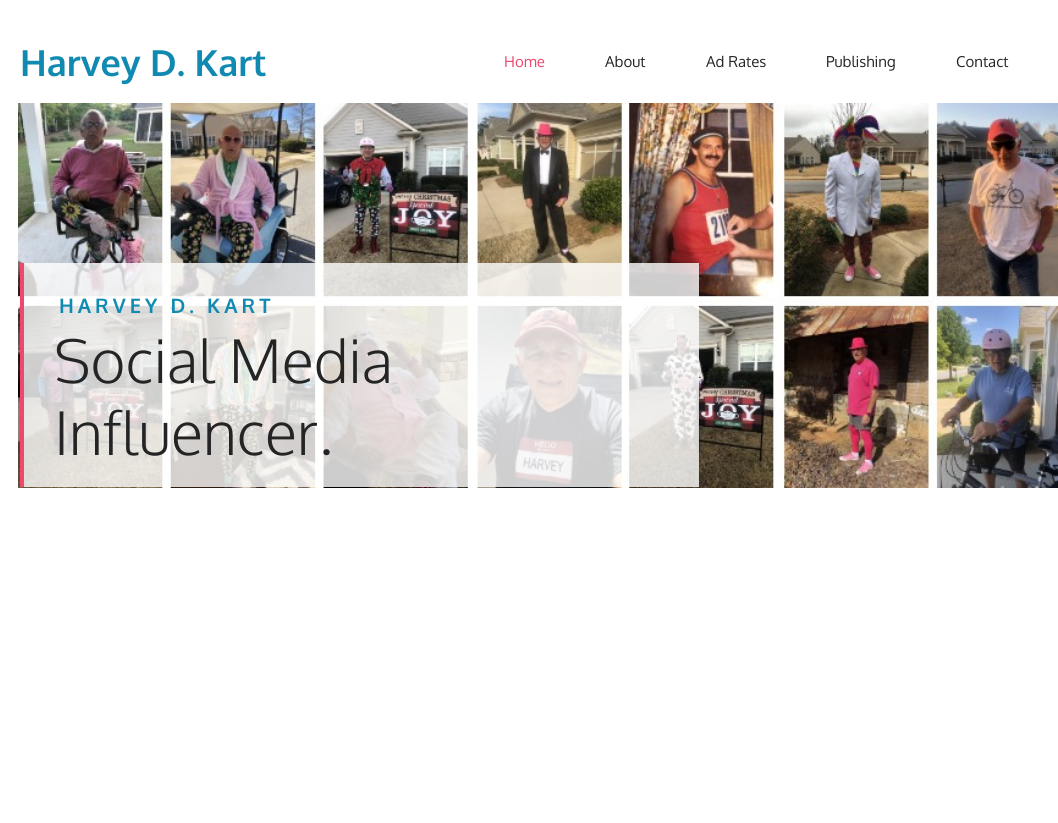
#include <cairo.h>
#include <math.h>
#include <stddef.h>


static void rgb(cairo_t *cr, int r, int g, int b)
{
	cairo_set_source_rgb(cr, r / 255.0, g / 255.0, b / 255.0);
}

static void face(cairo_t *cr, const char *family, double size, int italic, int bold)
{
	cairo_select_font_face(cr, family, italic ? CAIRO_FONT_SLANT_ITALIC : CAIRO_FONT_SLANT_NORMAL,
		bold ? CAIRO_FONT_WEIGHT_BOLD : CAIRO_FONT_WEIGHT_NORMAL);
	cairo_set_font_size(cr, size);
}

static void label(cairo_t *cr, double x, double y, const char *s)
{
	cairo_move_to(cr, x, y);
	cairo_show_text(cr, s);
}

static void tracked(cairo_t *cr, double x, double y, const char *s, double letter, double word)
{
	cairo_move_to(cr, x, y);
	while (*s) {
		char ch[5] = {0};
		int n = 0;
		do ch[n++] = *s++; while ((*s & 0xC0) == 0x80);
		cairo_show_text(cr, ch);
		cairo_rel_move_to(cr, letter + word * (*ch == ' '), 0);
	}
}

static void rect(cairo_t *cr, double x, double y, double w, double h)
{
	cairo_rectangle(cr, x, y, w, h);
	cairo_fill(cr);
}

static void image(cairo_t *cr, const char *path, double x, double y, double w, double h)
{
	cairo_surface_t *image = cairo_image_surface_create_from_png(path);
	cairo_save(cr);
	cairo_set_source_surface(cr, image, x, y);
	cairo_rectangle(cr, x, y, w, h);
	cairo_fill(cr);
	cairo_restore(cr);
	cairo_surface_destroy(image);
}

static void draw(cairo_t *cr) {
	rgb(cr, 255, 255, 255);
	cairo_paint(cr);
	face(cr, "Oxygen", 36, 0, 1);
	rgb(cr, 17, 138, 178);
	label(cr, 20, 76, "Harvey D. Kart");
	face(cr, "Oxygen", 15, 0, 0);
	rgb(cr, 239, 71, 111);
	label(cr, 504, 67, "Home");
	rgb(cr, 36, 36, 36);
	label(cr, 605, 67, "About");
	label(cr, 706, 67, "Ad Rates");
	label(cr, 826, 67, "Publishing");
	label(cr, 956, 67, "Contact");
	image(cr, "image0.png", 18, 103, 1040, 385);
	cairo_set_source_rgba(cr, 1, 1, 1, 0.8);
	rect(cr, 24, 263, 675, 224);
	rgb(cr, 239, 71, 111);
	rect(cr, 20, 263, 4, 224);
	face(cr, "Oxygen", 20, 0, 1);
	rgb(cr, 17, 138, 178);
	tracked(cr, 59, 313, "HARVEY D. KART", 4, 0);
	face(cr, "Oxygen Light", 60, 0, 0);
	rgb(cr, 36, 36, 36);
	label(cr, 54, 383, "Social Media");
	label(cr, 54, 455, "Influencer.");
}

int main(void) {
	cairo_surface_t *surface = cairo_image_surface_create(CAIRO_FORMAT_RGB24, 1058, 823);
	cairo_t *cr = cairo_create(surface);
	cairo_font_options_t *options = cairo_font_options_create();
	cairo_font_options_set_hint_metrics(options, CAIRO_HINT_METRICS_OFF);
	cairo_font_options_set_hint_style(options, CAIRO_HINT_STYLE_NONE);
	cairo_set_font_options(cr, options);
	cairo_set_miter_limit(cr, 4);
	draw(cr);
	cairo_surface_write_to_png(surface, "render.png");
	cairo_font_options_destroy(options);
	cairo_destroy(cr);
	cairo_surface_destroy(surface);
	return 0;
}
